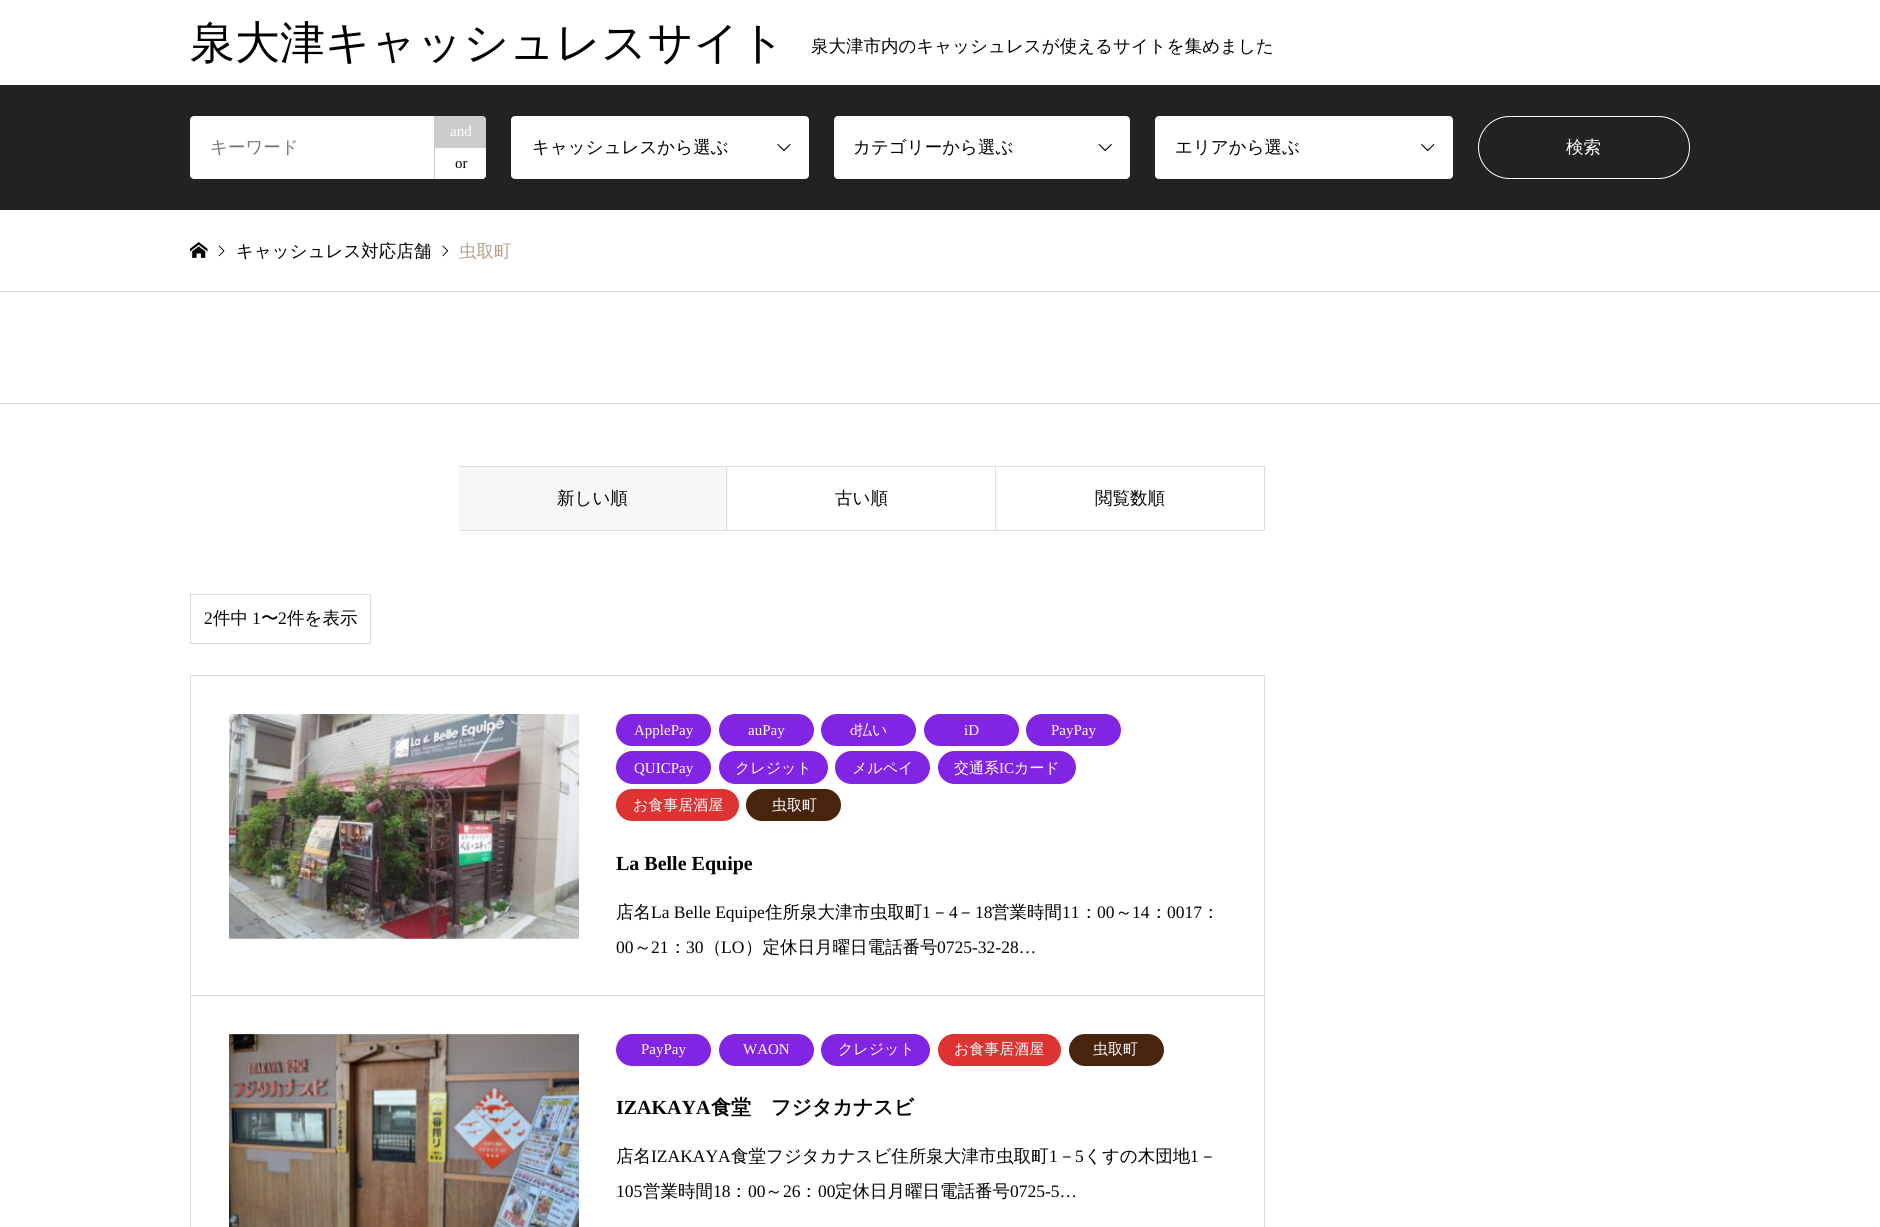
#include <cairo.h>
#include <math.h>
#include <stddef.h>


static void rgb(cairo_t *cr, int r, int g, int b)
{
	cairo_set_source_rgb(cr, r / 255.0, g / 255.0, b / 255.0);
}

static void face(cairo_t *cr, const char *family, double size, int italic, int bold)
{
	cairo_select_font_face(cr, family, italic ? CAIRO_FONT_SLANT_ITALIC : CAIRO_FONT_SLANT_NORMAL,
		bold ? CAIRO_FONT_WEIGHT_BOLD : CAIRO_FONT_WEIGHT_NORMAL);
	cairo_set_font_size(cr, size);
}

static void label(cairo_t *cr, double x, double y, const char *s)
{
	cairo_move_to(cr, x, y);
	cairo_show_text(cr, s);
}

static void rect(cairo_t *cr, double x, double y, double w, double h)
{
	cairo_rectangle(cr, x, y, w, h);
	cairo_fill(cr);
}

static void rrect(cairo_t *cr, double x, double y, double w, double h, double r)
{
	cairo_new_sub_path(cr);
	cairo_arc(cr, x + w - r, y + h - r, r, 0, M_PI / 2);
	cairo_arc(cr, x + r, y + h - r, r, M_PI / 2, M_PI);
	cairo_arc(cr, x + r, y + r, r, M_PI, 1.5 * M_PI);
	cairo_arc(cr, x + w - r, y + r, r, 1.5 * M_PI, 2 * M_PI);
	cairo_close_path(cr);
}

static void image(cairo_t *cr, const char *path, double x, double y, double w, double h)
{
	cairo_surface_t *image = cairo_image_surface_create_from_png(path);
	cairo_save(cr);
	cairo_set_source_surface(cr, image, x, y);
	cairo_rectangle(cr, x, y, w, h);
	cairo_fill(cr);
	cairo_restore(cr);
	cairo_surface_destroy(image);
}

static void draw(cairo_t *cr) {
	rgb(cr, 255, 255, 255);
	cairo_paint(cr);
	face(cr, "WenQuanYi Zen Hei Medium", 45, 0, 0);
	rgb(cr, 0, 0, 0);
	label(cr, 190, 58, "泉大津キャッシュレスサイト");
	face(cr, "WenQuanYi Zen Hei Medium", 17.5, 0, 0);
	label(cr, 811, 52, "泉大津市内のキャッシュレスが使えるサイトを集めました");
	rgb(cr, 34, 34, 34);
	rect(cr, 0, 85, 1880, 125);
	rgb(cr, 255, 255, 255);
	rrect(cr, 190, 116, 296, 63, 4);
	cairo_fill(cr);
	rgb(cr, 117, 117, 117);
	label(cr, 210, 153, "キーワード");
	rgb(cr, 204, 204, 204);
	cairo_new_path(cr);
	cairo_move_to(cr, 434, 116);
	cairo_line_to(cr, 482, 116);
	cairo_curve_to(cr, 484, 116, 486, 118, 486, 120);
	cairo_line_to(cr, 486, 148);
	cairo_line_to(cr, 434, 148);
	cairo_close_path(cr);
	cairo_fill(cr);
	face(cr, "Liberation Serif", 15, 0, 0);
	rgb(cr, 255, 255, 255);
	label(cr, 450, 136, "and");
	cairo_new_path(cr);
	cairo_move_to(cr, 434, 148);
	cairo_line_to(cr, 486, 148);
	cairo_line_to(cr, 486, 175);
	cairo_curve_to(cr, 486, 177, 484, 179, 482, 179);
	cairo_line_to(cr, 434, 179);
	cairo_close_path(cr);
	cairo_fill(cr);
	rgb(cr, 204, 204, 204);
	rect(cr, 434, 148, 1, 31);
	rgb(cr, 0, 0, 0);
	label(cr, 455, 168, "or");
	rgb(cr, 255, 255, 255);
	rrect(cr, 511, 116, 298, 63, 4);
	cairo_fill(cr);
	face(cr, "WenQuanYi Zen Hei Medium", 17.5, 0, 0);
	rgb(cr, 0, 0, 0);
	label(cr, 532, 153, "キャッシュレスから選ぶ");
	image(cr, "image0.png", 777, 144, 14, 7);
	rgb(cr, 255, 255, 255);
	rrect(cr, 834, 116, 296, 63, 4);
	cairo_fill(cr);
	rgb(cr, 0, 0, 0);
	label(cr, 853, 153, "カテゴリーから選ぶ");
	image(cr, "image1.png", 1098, 144, 14, 7);
	rgb(cr, 255, 255, 255);
	rrect(cr, 1155, 116, 298, 63, 4);
	cairo_fill(cr);
	rgb(cr, 0, 0, 0);
	label(cr, 1175, 153, "エリアから選ぶ");
	image(cr, "image2.png", 1421, 144, 14, 7);
	rrect(cr, 1478.5, 116.5, 211, 62, 31);
	rgb(cr, 255, 255, 255);
	cairo_set_line_width(cr, 1);
	cairo_stroke(cr);
	label(cr, 1566, 153, "検索");
	rgb(cr, 221, 221, 221);
	rect(cr, 0, 291, 1880, 1);
	image(cr, "image3.png", 190, 242, 18, 16);
	image(cr, "image4.png", 218, 245, 7, 12);
	rgb(cr, 0, 0, 0);
	label(cr, 236, 257, "キャッシュレス対応店舗");
	image(cr, "image5.png", 442, 245, 7, 12);
	rgb(cr, 182, 158, 132);
	label(cr, 459, 257, "虫取町");
	rgb(cr, 221, 221, 221);
	rect(cr, 0, 403, 1880, 1);
	rgb(cr, 247, 247, 247);
	rect(cr, 459, 467, 269, 63);
	rgb(cr, 221, 221, 221);
	rect(cr, 459, 466, 806, 1);
	rect(cr, 726, 466, 1, 65);
	rect(cr, 459, 530, 269, 1);
	rgb(cr, 0, 0, 0);
	label(cr, 557, 504, "新しい順");
	rgb(cr, 221, 221, 221);
	rect(cr, 995, 466, 1, 65);
	rect(cr, 728, 530, 268, 1);
	rgb(cr, 0, 0, 0);
	label(cr, 835, 504, "古い順");
	rgb(cr, 221, 221, 221);
	rect(cr, 1264, 466, 1, 65);
	rect(cr, 996, 530, 269, 1);
	rgb(cr, 0, 0, 0);
	label(cr, 1095, 504, "閲覧数順");
	cairo_rectangle(cr, 190.5, 594.5, 180, 49);
	rgb(cr, 221, 221, 221);
	cairo_stroke(cr);
	face(cr, "Liberation Serif", 17.5, 0, 0);
	rgb(cr, 0, 0, 0);
	label(cr, 204, 624, "2");
	face(cr, "WenQuanYi Zen Hei Medium", 17.5, 0, 0);
	label(cr, 213, 624, "件中");
	face(cr, "Liberation Serif", 17.5, 0, 0);
	label(cr, 252, 624, "1");
	face(cr, "WenQuanYi Zen Hei Medium", 17.5, 0, 0);
	label(cr, 261, 624, "〜");
	face(cr, "Liberation Serif", 17.5, 0, 0);
	label(cr, 278, 624, "2");
	face(cr, "WenQuanYi Zen Hei Medium", 17.5, 0, 0);
	label(cr, 287, 624, "件を表示");
	cairo_rectangle(cr, 190.5, 675.5, 1074, 320);
	rgb(cr, 221, 221, 221);
	cairo_stroke(cr);
	image(cr, "image6.png", 229, 714, 350, 225);
	rgb(cr, 130, 36, 227);
	rrect(cr, 616, 714, 95, 32, 16);
	cairo_fill(cr);
	face(cr, "Liberation Serif", 15, 0, 0);
	rgb(cr, 255, 255, 255);
	label(cr, 634, 735, "ApplePay");
	rgb(cr, 130, 36, 227);
	rrect(cr, 719, 714, 95, 32, 16);
	cairo_fill(cr);
	rgb(cr, 255, 255, 255);
	label(cr, 748, 735, "auPay");
	rgb(cr, 130, 36, 227);
	rrect(cr, 821, 714, 95, 32, 16);
	cairo_fill(cr);
	rgb(cr, 255, 255, 255);
	label(cr, 850, 735, "d");
	face(cr, "WenQuanYi Zen Hei Medium", 15, 0, 0);
	label(cr, 857, 735, "払い");
	rgb(cr, 130, 36, 227);
	rrect(cr, 924, 714, 95, 32, 16);
	cairo_fill(cr);
	face(cr, "Liberation Serif", 15, 0, 0);
	rgb(cr, 255, 255, 255);
	label(cr, 964, 735, "iD");
	rgb(cr, 130, 36, 227);
	rrect(cr, 1026, 714, 95, 32, 16);
	cairo_fill(cr);
	rgb(cr, 255, 255, 255);
	label(cr, 1051, 735, "PayPay");
	rgb(cr, 130, 36, 227);
	rrect(cr, 616, 751, 95, 33, 16.5);
	cairo_fill(cr);
	rgb(cr, 255, 255, 255);
	label(cr, 634, 773, "QUICPay");
	rgb(cr, 130, 36, 227);
	rrect(cr, 719, 751, 109, 33, 16.5);
	cairo_fill(cr);
	face(cr, "WenQuanYi Zen Hei Medium", 15, 0, 0);
	rgb(cr, 255, 255, 255);
	label(cr, 735, 773, "クレジット");
	rgb(cr, 130, 36, 227);
	rrect(cr, 835, 751, 95, 33, 16.5);
	cairo_fill(cr);
	rgb(cr, 255, 255, 255);
	label(cr, 852, 773, "メルペイ");
	rgb(cr, 130, 36, 227);
	rrect(cr, 938, 751, 138, 33, 16.5);
	cairo_fill(cr);
	rgb(cr, 255, 255, 255);
	label(cr, 954, 773, "交通系");
	face(cr, "Liberation Serif", 15, 0, 0);
	label(cr, 999, 773, "IC");
	face(cr, "WenQuanYi Zen Hei Medium", 15, 0, 0);
	label(cr, 1014, 773, "カード");
	rgb(cr, 221, 51, 51);
	rrect(cr, 616, 789, 123, 32, 16);
	cairo_fill(cr);
	rgb(cr, 255, 255, 255);
	label(cr, 633, 810, "お食事居酒屋");
	rgb(cr, 73, 36, 13);
	rrect(cr, 746, 789, 95, 32, 16);
	cairo_fill(cr);
	rgb(cr, 255, 255, 255);
	label(cr, 772, 810, "虫取町");
	face(cr, "Liberation Serif", 20, 0, 1);
	rgb(cr, 0, 0, 0);
	label(cr, 616, 870, "La Belle Equipe");
	face(cr, "WenQuanYi Zen Hei Medium", 17.5, 0, 0);
	label(cr, 616, 918, "店名");
	face(cr, "Liberation Serif", 17.5, 0, 0);
	label(cr, 651, 918, "La Belle Equipe");
	face(cr, "WenQuanYi Zen Hei Medium", 17.5, 0, 0);
	label(cr, 765, 918, "住所泉大津市虫取町");
	face(cr, "Liberation Serif", 17.5, 0, 0);
	label(cr, 922, 918, "1");
	face(cr, "WenQuanYi Zen Hei Medium", 17.5, 0, 0);
	label(cr, 931, 918, "－");
	face(cr, "Liberation Serif", 17.5, 0, 0);
	label(cr, 949, 918, "4");
	face(cr, "WenQuanYi Zen Hei Medium", 17.5, 0, 0);
	label(cr, 957, 918, "－");
	face(cr, "Liberation Serif", 17.5, 0, 0);
	label(cr, 975, 918, "18");
	face(cr, "WenQuanYi Zen Hei Medium", 17.5, 0, 0);
	label(cr, 992, 918, "営業時間");
	face(cr, "Liberation Serif", 17.5, 0, 0);
	label(cr, 1062, 918, "11");
	face(cr, "WenQuanYi Zen Hei Medium", 17.5, 0, 0);
	label(cr, 1080, 918, "：");
	face(cr, "Liberation Serif", 17.5, 0, 0);
	label(cr, 1097, 918, "00");
	face(cr, "WenQuanYi Zen Hei Medium", 17.5, 0, 0);
	label(cr, 1115, 918, "～");
	face(cr, "Liberation Serif", 17.5, 0, 0);
	label(cr, 1132, 918, "14");
	face(cr, "WenQuanYi Zen Hei Medium", 17.5, 0, 0);
	label(cr, 1150, 918, "：");
	face(cr, "Liberation Serif", 17.5, 0, 0);
	label(cr, 1167, 918, "0017");
	face(cr, "WenQuanYi Zen Hei Medium", 17.5, 0, 0);
	label(cr, 1202, 918, "：");
	face(cr, "Liberation Serif", 17.5, 0, 0);
	label(cr, 616, 953, "00");
	face(cr, "WenQuanYi Zen Hei Medium", 17.5, 0, 0);
	label(cr, 634, 953, "～");
	face(cr, "Liberation Serif", 17.5, 0, 0);
	label(cr, 651, 953, "21");
	face(cr, "WenQuanYi Zen Hei Medium", 17.5, 0, 0);
	label(cr, 669, 953, "：");
	face(cr, "Liberation Serif", 17.5, 0, 0);
	label(cr, 686, 953, "30");
	face(cr, "WenQuanYi Zen Hei Medium", 17.5, 0, 0);
	label(cr, 704, 953, "（");
	face(cr, "Liberation Serif", 17.5, 0, 0);
	label(cr, 721, 953, "LO");
	face(cr, "WenQuanYi Zen Hei Medium", 17.5, 0, 0);
	label(cr, 745, 953, "）定休日月曜日電話番号");
	face(cr, "Liberation Serif", 17.5, 0, 0);
	label(cr, 937, 953, "0725-32-28…");
	rgb(cr, 221, 221, 221);
	rect(cr, 1264, 996, 1, 231);
	rect(cr, 190, 996, 1, 231);
	image(cr, "image7.png", 229, 1034, 350, 193);
	rgb(cr, 130, 36, 227);
	rrect(cr, 616, 1034, 95, 32, 16);
	cairo_fill(cr);
	face(cr, "Liberation Serif", 15, 0, 0);
	rgb(cr, 255, 255, 255);
	label(cr, 641, 1054, "PayPay");
	rgb(cr, 130, 36, 227);
	rrect(cr, 719, 1034, 95, 32, 16);
	cairo_fill(cr);
	rgb(cr, 255, 255, 255);
	label(cr, 743, 1054, "WAON");
	rgb(cr, 130, 36, 227);
	rrect(cr, 821, 1034, 109, 32, 16);
	cairo_fill(cr);
	face(cr, "WenQuanYi Zen Hei Medium", 15, 0, 0);
	rgb(cr, 255, 255, 255);
	label(cr, 838, 1054, "クレジット");
	rgb(cr, 221, 51, 51);
	rrect(cr, 938, 1034, 123, 32, 16);
	cairo_fill(cr);
	rgb(cr, 255, 255, 255);
	label(cr, 954, 1054, "お食事居酒屋");
	rgb(cr, 73, 36, 13);
	rrect(cr, 1069, 1034, 95, 32, 16);
	cairo_fill(cr);
	rgb(cr, 255, 255, 255);
	label(cr, 1093, 1054, "虫取町");
	face(cr, "Liberation Serif", 20, 0, 1);
	rgb(cr, 0, 0, 0);
	label(cr, 616, 1114, "IZAKAYA");
	face(cr, "WenQuanYi Zen Hei", 20, 0, 1);
	label(cr, 711, 1114, "食堂　フジタカナスビ");
	face(cr, "WenQuanYi Zen Hei Medium", 17.5, 0, 0);
	label(cr, 616, 1162, "店名");
	face(cr, "Liberation Serif", 17.5, 0, 0);
	label(cr, 651, 1162, "IZAKAYA");
	face(cr, "WenQuanYi Zen Hei Medium", 17.5, 0, 0);
	label(cr, 731, 1162, "食堂フジタカナスビ住所泉大津市虫取町");
	face(cr, "Liberation Serif", 17.5, 0, 0);
	label(cr, 1049, 1162, "1");
	face(cr, "WenQuanYi Zen Hei Medium", 17.5, 0, 0);
	label(cr, 1058, 1162, "－");
	face(cr, "Liberation Serif", 17.5, 0, 0);
	label(cr, 1075, 1162, "5");
	face(cr, "WenQuanYi Zen Hei Medium", 17.5, 0, 0);
	label(cr, 1084, 1162, "くすの木団地");
	face(cr, "Liberation Serif", 17.5, 0, 0);
	label(cr, 1190, 1162, "1");
	face(cr, "WenQuanYi Zen Hei Medium", 17.5, 0, 0);
	label(cr, 1199, 1162, "－");
	face(cr, "Liberation Serif", 17.5, 0, 0);
	label(cr, 616, 1197, "105");
	face(cr, "WenQuanYi Zen Hei Medium", 17.5, 0, 0);
	label(cr, 643, 1197, "営業時間");
	face(cr, "Liberation Serif", 17.5, 0, 0);
	label(cr, 713, 1197, "18");
	face(cr, "WenQuanYi Zen Hei Medium", 17.5, 0, 0);
	label(cr, 730, 1197, "：");
	face(cr, "Liberation Serif", 17.5, 0, 0);
	label(cr, 748, 1197, "00");
	face(cr, "WenQuanYi Zen Hei Medium", 17.5, 0, 0);
	label(cr, 765, 1197, "～");
	face(cr, "Liberation Serif", 17.5, 0, 0);
	label(cr, 783, 1197, "26");
	face(cr, "WenQuanYi Zen Hei Medium", 17.5, 0, 0);
	label(cr, 800, 1197, "：");
	face(cr, "Liberation Serif", 17.5, 0, 0);
	label(cr, 818, 1197, "00");
	face(cr, "WenQuanYi Zen Hei Medium", 17.5, 0, 0);
	label(cr, 835, 1197, "定休日月曜日電話番号");
	face(cr, "Liberation Serif", 17.5, 0, 0);
	label(cr, 1010, 1197, "0725-5…");
}

int main(void) {
	cairo_surface_t *surface = cairo_image_surface_create(CAIRO_FORMAT_RGB24, 1880, 1227);
	cairo_t *cr = cairo_create(surface);
	cairo_font_options_t *options = cairo_font_options_create();
	cairo_font_options_set_hint_metrics(options, CAIRO_HINT_METRICS_OFF);
	cairo_font_options_set_hint_style(options, CAIRO_HINT_STYLE_NONE);
	cairo_set_font_options(cr, options);
	cairo_set_miter_limit(cr, 4);
	draw(cr);
	cairo_surface_write_to_png(surface, "render.png");
	cairo_font_options_destroy(options);
	cairo_destroy(cr);
	cairo_surface_destroy(surface);
	return 0;
}
